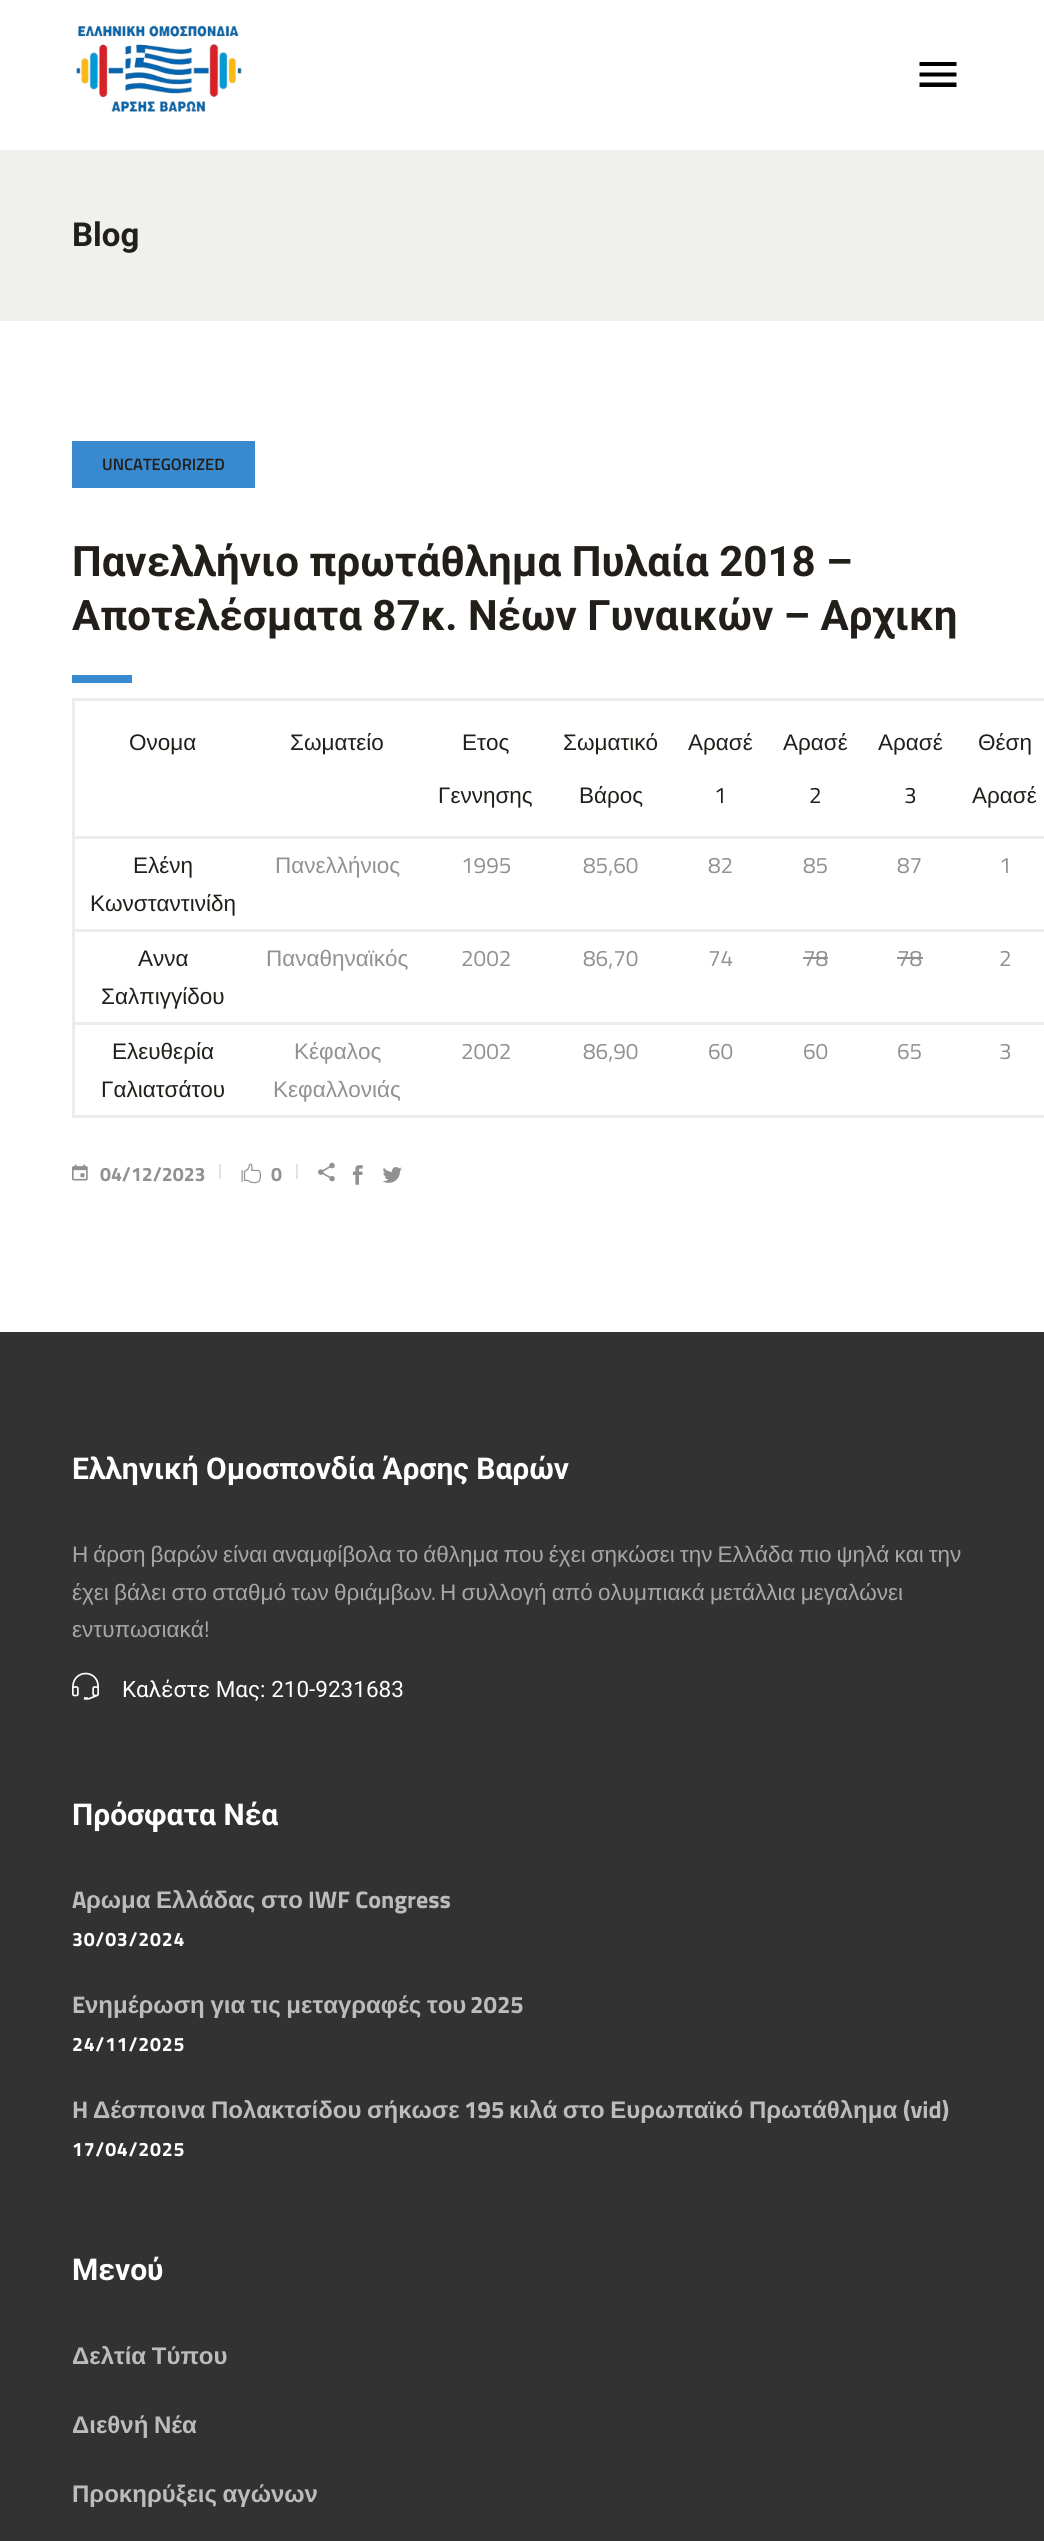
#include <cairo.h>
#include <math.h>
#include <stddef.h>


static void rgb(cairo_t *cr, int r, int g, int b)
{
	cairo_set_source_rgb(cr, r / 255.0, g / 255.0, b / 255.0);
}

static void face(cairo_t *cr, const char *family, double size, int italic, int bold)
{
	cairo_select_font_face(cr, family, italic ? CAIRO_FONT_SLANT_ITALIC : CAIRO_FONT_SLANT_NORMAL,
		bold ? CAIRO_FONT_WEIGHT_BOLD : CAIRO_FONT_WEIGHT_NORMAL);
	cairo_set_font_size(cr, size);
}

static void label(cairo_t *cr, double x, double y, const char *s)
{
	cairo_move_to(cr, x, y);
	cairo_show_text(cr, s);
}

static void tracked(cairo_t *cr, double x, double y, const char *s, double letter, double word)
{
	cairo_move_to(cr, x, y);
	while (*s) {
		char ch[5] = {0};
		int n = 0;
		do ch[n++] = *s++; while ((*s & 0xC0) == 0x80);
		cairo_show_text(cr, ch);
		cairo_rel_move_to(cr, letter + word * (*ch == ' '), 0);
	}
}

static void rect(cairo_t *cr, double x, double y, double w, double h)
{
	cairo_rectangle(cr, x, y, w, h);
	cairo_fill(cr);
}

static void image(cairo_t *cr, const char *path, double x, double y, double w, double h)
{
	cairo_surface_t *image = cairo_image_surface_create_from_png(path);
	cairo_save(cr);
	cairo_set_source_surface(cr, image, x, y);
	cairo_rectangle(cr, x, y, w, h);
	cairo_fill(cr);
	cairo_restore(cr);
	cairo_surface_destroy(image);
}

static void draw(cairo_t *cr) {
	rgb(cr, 255, 255, 255);
	cairo_paint(cr);
	image(cr, "image0.png", 76, 25, 166, 91);
	rgb(cr, 0, 0, 0);
	cairo_new_path(cr);
	cairo_move_to(cr, 919.5, 87);
	cairo_line_to(cr, 919.5, 82.5);
	cairo_line_to(cr, 956.5, 82.5);
	cairo_line_to(cr, 956.5, 87);
	cairo_close_path(cr);
	cairo_move_to(cr, 919.5, 76.5);
	cairo_line_to(cr, 919.5, 72.5);
	cairo_line_to(cr, 956.5, 72.5);
	cairo_line_to(cr, 956.5, 76.5);
	cairo_close_path(cr);
	cairo_move_to(cr, 919.5, 62);
	cairo_line_to(cr, 956.5, 62);
	cairo_line_to(cr, 956.5, 66);
	cairo_line_to(cr, 919.5, 66);
	cairo_close_path(cr);
	cairo_fill(cr);
	rgb(cr, 240, 240, 239);
	rect(cr, 0, 150, 1044, 171);
	face(cr, "Roboto", 33, 0, 1);
	rgb(cr, 34, 31, 27);
	label(cr, 72, 246, "Blog");
	rgb(cr, 57, 137, 206);
	rect(cr, 72, 441, 183, 47);
	face(cr, "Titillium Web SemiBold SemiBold", 16.5, 0, 0);
	rgb(cr, 34, 31, 27);
	label(cr, 102, 470, "UNCATEGORIZED");
	face(cr, "Roboto", 42, 0, 1);
	label(cr, 72, 576, "Πανελλήνιο πρωτάθλημα Πυλαία 2018 –");
	label(cr, 72, 630, "Αποτελέσματα 87κ. Νέων Γυναικών – Αρχικη");
	rgb(cr, 57, 137, 206);
	rect(cr, 72, 675, 60, 8);
	rgb(cr, 237, 236, 236);
	rect(cr, 72, 698, 972, 3);
	rect(cr, 72, 836, 972, 3);
	rect(cr, 72, 929, 972, 3);
	rect(cr, 72, 1022, 972, 3);
	rect(cr, 72, 1115, 972, 3);
	rect(cr, 72, 1022, 3, 96);
	rect(cr, 72, 929, 3, 96);
	rect(cr, 72, 836, 3, 96);
	rect(cr, 72, 698, 3, 141);
	face(cr, "Liberation Sans", 22.5, 0, 0);
	rgb(cr, 34, 31, 27);
	label(cr, 129, 750, "Ονομα");
	label(cr, 290, 750, "Σωματείο");
	label(cr, 462, 750, "Ετος");
	label(cr, 438, 803, "Γεννησης");
	label(cr, 563, 750, "Σωματικό");
	label(cr, 579, 803, "Βάρος");
	label(cr, 688, 750, "Αρασέ");
	face(cr, "Titillium Web", 22.5, 0, 0);
	label(cr, 714, 803, "1");
	face(cr, "Liberation Sans", 22.5, 0, 0);
	label(cr, 783, 750, "Αρασέ");
	face(cr, "Titillium Web", 22.5, 0, 0);
	label(cr, 809, 803, "2");
	face(cr, "Liberation Sans", 22.5, 0, 0);
	label(cr, 878, 750, "Αρασέ");
	face(cr, "Titillium Web", 22.5, 0, 0);
	label(cr, 904, 803, "3");
	face(cr, "Liberation Sans", 22.5, 0, 0);
	label(cr, 978, 750, "Θέση");
	label(cr, 972, 803, "Αρασέ");
	label(cr, 133, 873, "Ελένη");
	label(cr, 90, 911, "Κωνσταντινίδη");
	rgb(cr, 146, 145, 145);
	label(cr, 275, 873, "Πανελλήνιος");
	face(cr, "Titillium Web", 22.5, 0, 0);
	label(cr, 461, 873, "1995");
	label(cr, 583, 873, "85,60");
	label(cr, 708, 873, "82");
	label(cr, 803, 873, "85");
	label(cr, 897, 873, "87");
	label(cr, 999, 873, "1");
	face(cr, "Liberation Sans", 22.5, 0, 0);
	rgb(cr, 34, 31, 27);
	label(cr, 138, 966, "Αννα");
	label(cr, 101, 1004, "Σαλπιγγίδου");
	rgb(cr, 146, 145, 145);
	label(cr, 266, 966, "Παναθηναϊκός");
	face(cr, "Titillium Web", 22.5, 0, 0);
	label(cr, 461, 966, "2002");
	label(cr, 583, 966, "86,70");
	label(cr, 708, 966, "74");
	label(cr, 803, 966, "78");
	rect(cr, 803, 957, 25, 2);
	label(cr, 897, 966, "78");
	rect(cr, 897, 957, 26, 2);
	label(cr, 999, 966, "2");
	face(cr, "Liberation Sans", 22.5, 0, 0);
	rgb(cr, 34, 31, 27);
	label(cr, 112, 1059, "Ελευθερία");
	label(cr, 101, 1097, "Γαλιατσάτου");
	rgb(cr, 146, 145, 145);
	label(cr, 294, 1059, "Κέφαλος");
	label(cr, 273, 1097, "Κεφαλλονιάς");
	face(cr, "Titillium Web", 22.5, 0, 0);
	label(cr, 461, 1059, "2002");
	label(cr, 583, 1059, "86,90");
	label(cr, 708, 1059, "60");
	label(cr, 803, 1059, "60");
	label(cr, 897, 1059, "65");
	label(cr, 999, 1059, "3");
	image(cr, "image1.png", 72, 1164, 16, 17);
	face(cr, "Titillium Web", 19.5, 0, 1);
	label(cr, 100, 1181, "04/12/2023");
	rgb(cr, 226, 227, 227);
	rect(cr, 219, 1164, 2, 15);
	image(cr, "image2.png", 241, 1163, 20, 21);
	rgb(cr, 146, 145, 145);
	label(cr, 271, 1181, "0");
	rgb(cr, 226, 227, 227);
	rect(cr, 296, 1164, 2, 15);
	image(cr, "image3.png", 318, 1162, 17, 20);
	image(cr, "image4.png", 352, 1165, 11, 20);
	image(cr, "image5.png", 382, 1167, 20, 16);
	rgb(cr, 50, 50, 50);
	rect(cr, 0, 1332, 1044, 1209);
	face(cr, "Roboto", 30, 0, 1);
	rgb(cr, 255, 255, 255);
	label(cr, 72, 1479, "Ελληνική Ομοσπονδία Άρσης Βαρών");
	face(cr, "Liberation Sans", 22.5, 0, 0);
	rgb(cr, 169, 166, 166);
	tracked(cr, 72, 1562, "Η άρση βαρών είναι αναμφίβολα το άθλημα που έχει σηκώσει την Ελλάδα πιο ψηλά και την", 0, -1.25);
	tracked(cr, 72, 1600, "έχει βάλει στο σταθμό των θριάμβων", 0, -1);
	face(cr, "Titillium Web", 22.5, 0, 0);
	label(cr, 431, 1600, ".");
	face(cr, "Liberation Sans", 22.5, 0, 0);
	tracked(cr, 440, 1600, "Η συλλογή από ολυμπιακά μετάλλια μεγαλώνει", 0, -1);
	label(cr, 72, 1637, "εντυπωσιακά");
	face(cr, "Titillium Web", 22.5, 0, 0);
	label(cr, 204, 1637, "!");
	image(cr, "image6.png", 72, 1672, 27, 28);
	face(cr, "Roboto", 22.5, 0, 0);
	rgb(cr, 255, 255, 255);
	label(cr, 122, 1697, "Καλέστε Μας: 210-9231683");
	face(cr, "Roboto", 30, 0, 1);
	label(cr, 72, 1825, "Πρόσφατα Νέα");
	face(cr, "Titillium Web", 24, 0, 1);
	rgb(cr, 189, 188, 188);
	label(cr, 72, 1908, "A");
	face(cr, "Liberation Sans", 24, 0, 1);
	label(cr, 86, 1908, "ρωμα");
	label(cr, 156, 1908, "Ελλάδας");
	label(cr, 261, 1908, "στο");
	face(cr, "Titillium Web", 24, 0, 1);
	label(cr, 308, 1908, "IWF Congress");
	face(cr, "Titillium Web", 19.5, 0, 1);
	rgb(cr, 255, 255, 255);
	tracked(cr, 72, 1946, "30/03/2024", 0.75, 0);
	face(cr, "Titillium Web", 24, 0, 1);
	rgb(cr, 189, 188, 188);
	label(cr, 72, 2013, "E");
	face(cr, "Liberation Sans", 24, 0, 1);
	tracked(cr, 85, 2013, "νημέρωση για τις μεταγραφές του", 0, -1);
	face(cr, "Titillium Web", 24, 0, 1);
	label(cr, 470, 2013, "2025");
	face(cr, "Titillium Web", 19.5, 0, 1);
	rgb(cr, 255, 255, 255);
	tracked(cr, 72, 2051, "24/11/2025", 0.75, 0);
	face(cr, "Titillium Web", 24, 0, 1);
	rgb(cr, 189, 188, 188);
	label(cr, 72, 2118, "H");
	face(cr, "Liberation Sans", 24, 0, 1);
	tracked(cr, 93, 2118, "Δέσποινα Πολακτσίδου σήκωσε", 0, -1);
	face(cr, "Titillium Web", 24, 0, 1);
	label(cr, 464, 2118, "195");
	face(cr, "Liberation Sans", 24, 0, 1);
	tracked(cr, 509, 2118, "κιλά στο Ευρωπαϊκό Πρωτάθλημα", 0, -1);
	face(cr, "Titillium Web", 24, 0, 1);
	label(cr, 903, 2118, "(vid)");
	face(cr, "Titillium Web", 19.5, 0, 1);
	rgb(cr, 255, 255, 255);
	tracked(cr, 72, 2156, "17/04/2025", 0.75, 0);
	face(cr, "Roboto", 30, 0, 1);
	label(cr, 72, 2280, "Μενού");
	face(cr, "Liberation Sans", 24, 0, 1);
	rgb(cr, 189, 188, 188);
	tracked(cr, 72, 2364, "Δελτία Τύπου", 0, -1);
	tracked(cr, 72, 2433, "Διεθνή Νέα", 0, -1);
	tracked(cr, 72, 2502, "Προκηρύξεις αγώνων", 0, -1);
}

int main(void) {
	cairo_surface_t *surface = cairo_image_surface_create(CAIRO_FORMAT_RGB24, 1044, 2541);
	cairo_t *cr = cairo_create(surface);
	cairo_font_options_t *options = cairo_font_options_create();
	cairo_font_options_set_hint_metrics(options, CAIRO_HINT_METRICS_OFF);
	cairo_font_options_set_hint_style(options, CAIRO_HINT_STYLE_NONE);
	cairo_set_font_options(cr, options);
	cairo_set_miter_limit(cr, 4);
	draw(cr);
	cairo_surface_write_to_png(surface, "render.png");
	cairo_font_options_destroy(options);
	cairo_destroy(cr);
	cairo_surface_destroy(surface);
	return 0;
}
